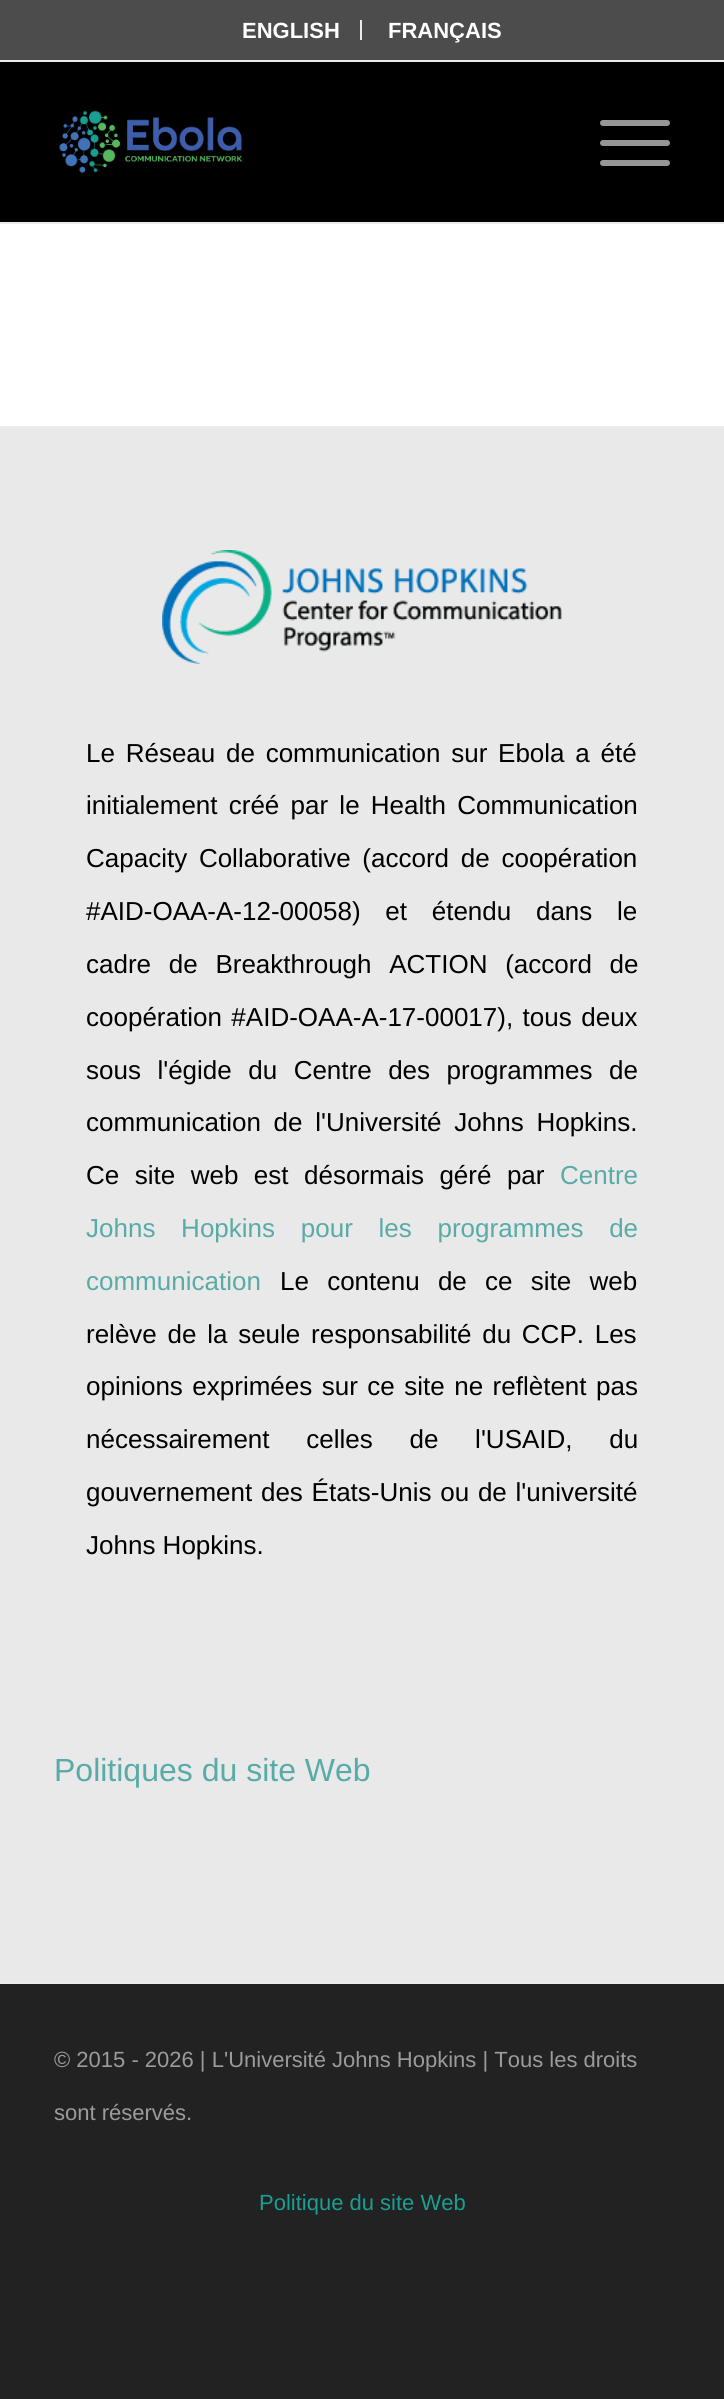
#include <cairo.h>
#include <math.h>
#include <stddef.h>


static void rgb(cairo_t *cr, int r, int g, int b)
{
	cairo_set_source_rgb(cr, r / 255.0, g / 255.0, b / 255.0);
}

static void face(cairo_t *cr, const char *family, double size, int italic, int bold)
{
	cairo_select_font_face(cr, family, italic ? CAIRO_FONT_SLANT_ITALIC : CAIRO_FONT_SLANT_NORMAL,
		bold ? CAIRO_FONT_WEIGHT_BOLD : CAIRO_FONT_WEIGHT_NORMAL);
	cairo_set_font_size(cr, size);
}

static void label(cairo_t *cr, double x, double y, const char *s)
{
	cairo_move_to(cr, x, y);
	cairo_show_text(cr, s);
}

static void tracked(cairo_t *cr, double x, double y, const char *s, double letter, double word)
{
	cairo_move_to(cr, x, y);
	while (*s) {
		char ch[5] = {0};
		int n = 0;
		do ch[n++] = *s++; while ((*s & 0xC0) == 0x80);
		cairo_show_text(cr, ch);
		cairo_rel_move_to(cr, letter + word * (*ch == ' '), 0);
	}
}

static void rect(cairo_t *cr, double x, double y, double w, double h)
{
	cairo_rectangle(cr, x, y, w, h);
	cairo_fill(cr);
}

static void rrect(cairo_t *cr, double x, double y, double w, double h, double r)
{
	cairo_new_sub_path(cr);
	cairo_arc(cr, x + w - r, y + h - r, r, 0, M_PI / 2);
	cairo_arc(cr, x + r, y + h - r, r, M_PI / 2, M_PI);
	cairo_arc(cr, x + r, y + r, r, M_PI, 1.5 * M_PI);
	cairo_arc(cr, x + w - r, y + r, r, 1.5 * M_PI, 2 * M_PI);
	cairo_close_path(cr);
}

static void image(cairo_t *cr, const char *path, double x, double y, double w, double h)
{
	cairo_surface_t *image = cairo_image_surface_create_from_png(path);
	cairo_save(cr);
	cairo_set_source_surface(cr, image, x, y);
	cairo_rectangle(cr, x, y, w, h);
	cairo_fill(cr);
	cairo_restore(cr);
	cairo_surface_destroy(image);
}

static void draw(cairo_t *cr) {
	rgb(cr, 34, 34, 34);
	cairo_paint(cr);
	rgb(cr, 76, 76, 76);
	rect(cr, 0, 0, 724, 60);
	rgb(cr, 235, 235, 235);
	rect(cr, 0, 60, 724, 2);
	rect(cr, 360, 20, 2, 20);
	face(cr, "Liberation Sans", 22, 0, 1);
	rgb(cr, 255, 255, 255);
	label(cr, 242, 38, "ENGLISH");
	label(cr, 388, 38, "FRANÇAIS");
	rgb(cr, 0, 0, 0);
	rect(cr, 0, 62, 724, 160);
	rgb(cr, 235, 235, 235);
	rect(cr, 0, 222, 724, 2);
	image(cr, "image0.png", 59, 110, 184, 63);
	rgb(cr, 150, 150, 150);
	rrect(cr, 600, 140, 70, 6, 3);
	cairo_fill(cr);
	rrect(cr, 600, 120, 70, 6, 3);
	cairo_fill(cr);
	rrect(cr, 600, 160, 70, 6, 3);
	cairo_fill(cr);
	rgb(cr, 255, 255, 255);
	rect(cr, 0, 224, 724, 202);
	rgb(cr, 233, 233, 233);
	rect(cr, 0, 428, 724, 1554);
	rgb(cr, 235, 235, 235);
	rect(cr, 0, 426, 724, 2);
	image(cr, "image1.png", 162, 550, 400, 114);
	face(cr, "Liberation Sans", 26, 0, 0);
	rgb(cr, 0, 0, 0);
	tracked(cr, 86, 762, "Le Réseau de communication sur Ebola a été", 0, 3.5);
	tracked(cr, 86, 814, "initialement créé par le Health Communication", 0, 4);
	tracked(cr, 86, 867, "Capacity Collaborative (accord de coopération", 0, 4.5);
	tracked(cr, 86, 920, "#AID-OAA-A-12-00058) et étendu dans le", 0, 17.5);
	tracked(cr, 86, 973, "cadre de Breakthrough ACTION (accord de", 0, 10.5);
	tracked(cr, 86, 1026, "coopération #AID-OAA-A-17-00017), tous deux", 0, 2.25);
	tracked(cr, 86, 1079, "sous l'égide du Centre des programmes de", 0, 9.25);
	tracked(cr, 86, 1131, "communication de l'Université Johns Hopkins.", 0, 5.5);
	tracked(cr, 86, 1184, "Ce site web est désormais géré par", 0, 8.25);
	rgb(cr, 89, 171, 167);
	label(cr, 560, 1184, "Centre");
	tracked(cr, 86, 1237, "Johns Hopkins pour les programmes de", 0, 18.5);
	label(cr, 86, 1290, "communication");
	rgb(cr, 0, 0, 0);
	tracked(cr, 280, 1290, "Le contenu de ce site web", 0, 11);
	tracked(cr, 86, 1343, "relève de la seule responsabilité du CCP. Les", 0, 3.5);
	tracked(cr, 86, 1395, "opinions exprimées sur ce site ne reflètent pas", 0, 2.25);
	tracked(cr, 86, 1448, "nécessairement celles de l'USAID, du", 0, 29.5);
	tracked(cr, 86, 1501, "gouvernement des États-Unis ou de l'université", 0, 1.5);
	label(cr, 86, 1554, "Johns Hopkins.");
	face(cr, "Liberation Sans", 32, 0, 0);
	rgb(cr, 89, 171, 167);
	label(cr, 54, 1781, "Politiques du site Web");
	rgb(cr, 235, 235, 235);
	rect(cr, 0, 1982, 724, 2);
	face(cr, "Liberation Sans", 22, 0, 0);
	rgb(cr, 155, 155, 155);
	label(cr, 54, 2067, "© 2015 - 2026 | L'Université Johns Hopkins | Tous les droits");
	label(cr, 54, 2120, "sont réservés.");
	rgb(cr, 25, 159, 146);
	label(cr, 259, 2210, "Politique du site Web");
}

int main(void) {
	cairo_surface_t *surface = cairo_image_surface_create(CAIRO_FORMAT_RGB24, 724, 2399);
	cairo_t *cr = cairo_create(surface);
	cairo_font_options_t *options = cairo_font_options_create();
	cairo_font_options_set_hint_metrics(options, CAIRO_HINT_METRICS_OFF);
	cairo_font_options_set_hint_style(options, CAIRO_HINT_STYLE_NONE);
	cairo_set_font_options(cr, options);
	cairo_set_miter_limit(cr, 4);
	draw(cr);
	cairo_surface_write_to_png(surface, "render.png");
	cairo_font_options_destroy(options);
	cairo_destroy(cr);
	cairo_surface_destroy(surface);
	return 0;
}
